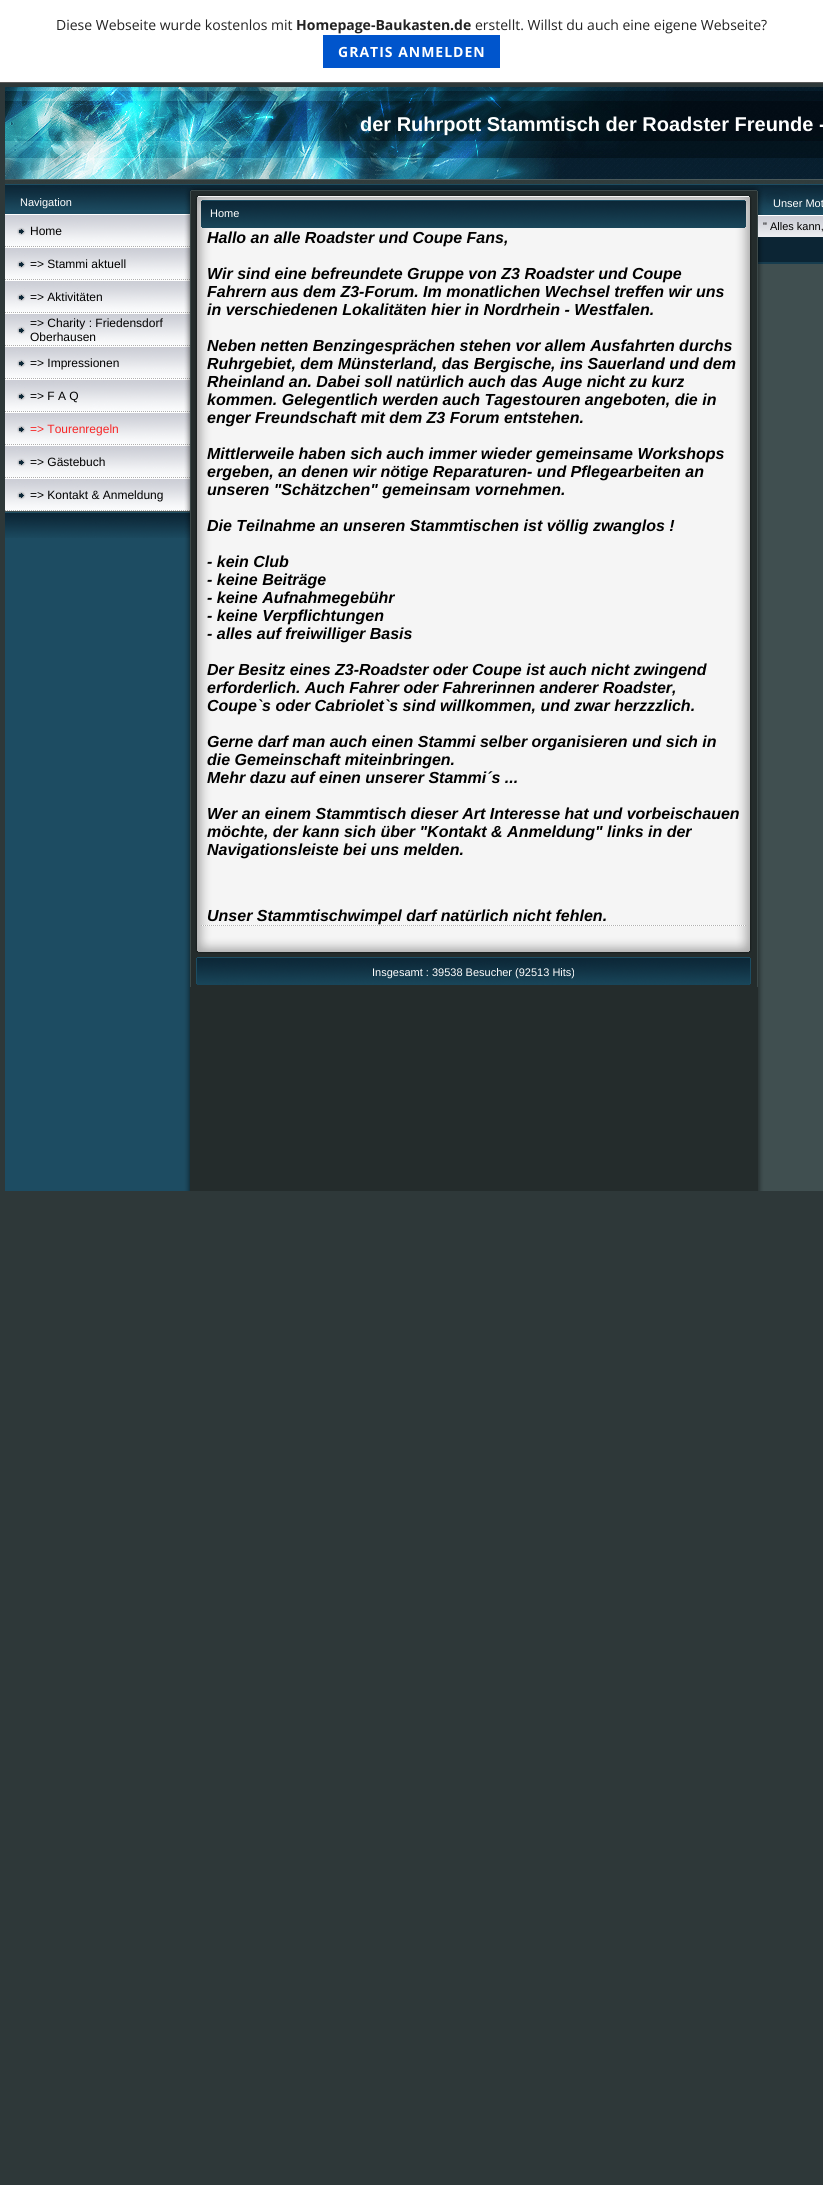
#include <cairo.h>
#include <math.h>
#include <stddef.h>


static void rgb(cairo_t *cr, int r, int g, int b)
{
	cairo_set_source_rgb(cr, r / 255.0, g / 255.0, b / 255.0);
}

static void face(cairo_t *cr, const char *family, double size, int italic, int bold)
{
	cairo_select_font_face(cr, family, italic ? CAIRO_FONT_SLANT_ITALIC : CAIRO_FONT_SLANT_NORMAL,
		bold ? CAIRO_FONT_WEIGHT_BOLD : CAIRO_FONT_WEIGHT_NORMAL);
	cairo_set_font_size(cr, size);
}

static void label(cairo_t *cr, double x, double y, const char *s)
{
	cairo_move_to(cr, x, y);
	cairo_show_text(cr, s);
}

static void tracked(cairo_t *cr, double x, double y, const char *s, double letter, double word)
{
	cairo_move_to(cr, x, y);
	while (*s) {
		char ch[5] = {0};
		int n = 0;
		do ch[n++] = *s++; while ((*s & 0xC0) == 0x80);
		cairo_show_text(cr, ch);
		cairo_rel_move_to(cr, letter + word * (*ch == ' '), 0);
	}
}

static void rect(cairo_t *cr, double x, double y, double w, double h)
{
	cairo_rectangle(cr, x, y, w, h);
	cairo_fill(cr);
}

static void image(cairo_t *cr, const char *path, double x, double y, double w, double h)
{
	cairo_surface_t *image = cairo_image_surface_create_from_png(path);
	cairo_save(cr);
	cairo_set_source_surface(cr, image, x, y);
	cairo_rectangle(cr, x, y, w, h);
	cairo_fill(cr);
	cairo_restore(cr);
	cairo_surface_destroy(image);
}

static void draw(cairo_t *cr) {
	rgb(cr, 46, 56, 57);
	cairo_paint(cr);
	rgb(cr, 255, 255, 255);
	rect(cr, 0, 0, 823, 82);
	rgb(cr, 90, 90, 90);
	rect(cr, 0, 82, 823, 1);
	face(cr, "Open Sans", 14, 0, 0);
	rgb(cr, 35, 35, 35);
	label(cr, 56, 30, "Diese Webseite wurde kostenlos mit");
	face(cr, "Open Sans", 14, 0, 1);
	label(cr, 296, 30, "Homepage-Baukasten.de");
	face(cr, "Open Sans", 14, 0, 0);
	label(cr, 475, 30, "erstellt. Willst du auch eine eigene Webseite?");
	rgb(cr, 0, 85, 204);
	rect(cr, 323, 35, 177, 33);
	face(cr, "Open Sans", 14, 0, 1);
	rgb(cr, 255, 255, 255);
	tracked(cr, 338, 57, "GRATIS ANMELDEN", 1, 0);
	image(cr, "image0.png", 5, 87, 818, 104);
	face(cr, "Liberation Sans", 20, 0, 1);
	label(cr, 360, 131, "der Ruhrpott Stammtisch der Roadster Freunde -");
	image(cr, "image1.png", 5, 210, 185, 981);
	image(cr, "image2.png", 5, 191, 185, 19);
	face(cr, "Liberation Sans", 11, 0, 0);
	label(cr, 20, 206, "Navigation");
	image(cr, "image3.png", 5, 214, 185, 33);
	face(cr, "Liberation Sans", 12, 0, 0);
	rgb(cr, 0, 0, 0);
	label(cr, 30, 235, "Home");
	image(cr, "image3.png", 5, 247, 185, 33);
	label(cr, 30, 268, "=> Stammi aktuell");
	image(cr, "image3.png", 5, 280, 185, 33);
	label(cr, 30, 301, "=> Aktivitäten");
	image(cr, "image3.png", 5, 313, 185, 33);
	label(cr, 30, 327, "=> Charity : Friedensdorf");
	label(cr, 30, 341, "Oberhausen");
	image(cr, "image3.png", 5, 346, 185, 33);
	label(cr, 30, 367, "=> Impressionen");
	image(cr, "image3.png", 5, 379, 185, 33);
	label(cr, 30, 400, "=> F A Q");
	image(cr, "image3.png", 5, 412, 185, 33);
	rgb(cr, 247, 38, 38);
	label(cr, 30, 433, "=> Tourenregeln");
	image(cr, "image3.png", 5, 445, 185, 33);
	rgb(cr, 0, 0, 0);
	label(cr, 30, 466, "=> Gästebuch");
	image(cr, "image3.png", 5, 478, 185, 33);
	label(cr, 30, 499, "=> Kontakt & Anmeldung");
	image(cr, "image4.png", 5, 511, 185, 27);
	rgb(cr, 36, 44, 44);
	rect(cr, 190, 987, 568, 204);
	image(cr, "image5.png", 190, 191, 568, 38);
	face(cr, "Liberation Sans", 11, 0, 0);
	rgb(cr, 255, 255, 255);
	label(cr, 210, 217, "Home");
	image(cr, "image6.png", 190, 229, 568, 696);
	face(cr, "Liberation Sans", 16, 1, 1);
	rgb(cr, 0, 0, 0);
	label(cr, 207, 243, "Hallo an alle Roadster und Coupe Fans,");
	label(cr, 207, 279, "Wir sind eine befreundete Gruppe von Z3 Roadster und Coupe");
	label(cr, 207, 297, "Fahrern aus dem Z3-Forum. Im monatlichen Wechsel treffen wir uns");
	label(cr, 207, 315, "in verschiedenen Lokalitäten hier in Nordrhein - Westfalen.");
	label(cr, 207, 351, "Neben netten Benzingesprächen stehen vor allem Ausfahrten durchs");
	label(cr, 207, 369, "Ruhrgebiet, dem Münsterland, das Bergische, ins Sauerland und dem");
	label(cr, 207, 387, "Rheinland an. Dabei soll natürlich auch das Auge nicht zu kurz");
	label(cr, 207, 405, "kommen. Gelegentlich werden auch Tagestouren angeboten, die in");
	label(cr, 207, 423, "enger Freundschaft mit dem Z3 Forum entstehen.");
	label(cr, 207, 459, "Mittlerweile haben sich auch immer wieder gemeinsame Workshops");
	label(cr, 207, 477, "ergeben, an denen wir nötige Reparaturen- und Pflegearbeiten an");
	label(cr, 207, 495, "unseren \"Schätzchen\" gemeinsam vornehmen.");
	label(cr, 207, 531, "Die Teilnahme an unseren Stammtischen ist völlig zwanglos !");
	label(cr, 207, 567, "- kein Club");
	label(cr, 207, 585, "- keine Beiträge");
	label(cr, 207, 603, "- keine Aufnahmegebühr");
	label(cr, 207, 621, "- keine Verpflichtungen");
	label(cr, 207, 639, "- alles auf freiwilliger Basis");
	label(cr, 207, 675, "Der Besitz eines Z3-Roadster oder Coupe ist auch nicht zwingend");
	label(cr, 207, 693, "erforderlich. Auch Fahrer oder Fahrerinnen anderer Roadster,");
	label(cr, 207, 711, "Coupe`s oder Cabriolet`s sind willkommen, und zwar herzzzlich.");
	label(cr, 207, 747, "Gerne darf man auch einen Stammi selber organisieren und sich in");
	label(cr, 207, 765, "die Gemeinschaft miteinbringen.");
	label(cr, 207, 783, "Mehr dazu auf einen unserer Stammi´s ...");
	label(cr, 207, 819, "Wer an einem Stammtisch dieser Art Interesse hat und vorbeischauen");
	label(cr, 207, 837, "möchte, der kann sich über \"Kontakt & Anmeldung\" links in der");
	label(cr, 207, 855, "Navigationsleiste bei uns melden.");
	label(cr, 207, 921, "Unser Stammtischwimpel darf natürlich nicht fehlen.");
	image(cr, "image7.png", 190, 925, 568, 31);
	image(cr, "image8.png", 190, 956, 568, 31);
	face(cr, "Liberation Sans", 11, 0, 0);
	rgb(cr, 255, 255, 255);
	label(cr, 372, 976, "Insgesamt : 39538 Besucher (92513 Hits)");
	image(cr, "image9.png", 759, 264, 64, 927);
	image(cr, "image10.png", 758, 191, 65, 24);
	label(cr, 773, 207, "Unser Mot");
	image(cr, "image11.png", 758, 215, 65, 22);
	rgb(cr, 0, 0, 0);
	label(cr, 763, 230, "\" Alles kann,");
	image(cr, "image12.png", 758, 237, 65, 27);
}

int main(void) {
	cairo_surface_t *surface = cairo_image_surface_create(CAIRO_FORMAT_RGB24, 823, 2185);
	cairo_t *cr = cairo_create(surface);
	cairo_font_options_t *options = cairo_font_options_create();
	cairo_font_options_set_hint_metrics(options, CAIRO_HINT_METRICS_OFF);
	cairo_font_options_set_hint_style(options, CAIRO_HINT_STYLE_NONE);
	cairo_set_font_options(cr, options);
	cairo_set_miter_limit(cr, 4);
	draw(cr);
	cairo_surface_write_to_png(surface, "render.png");
	cairo_font_options_destroy(options);
	cairo_destroy(cr);
	cairo_surface_destroy(surface);
	return 0;
}
